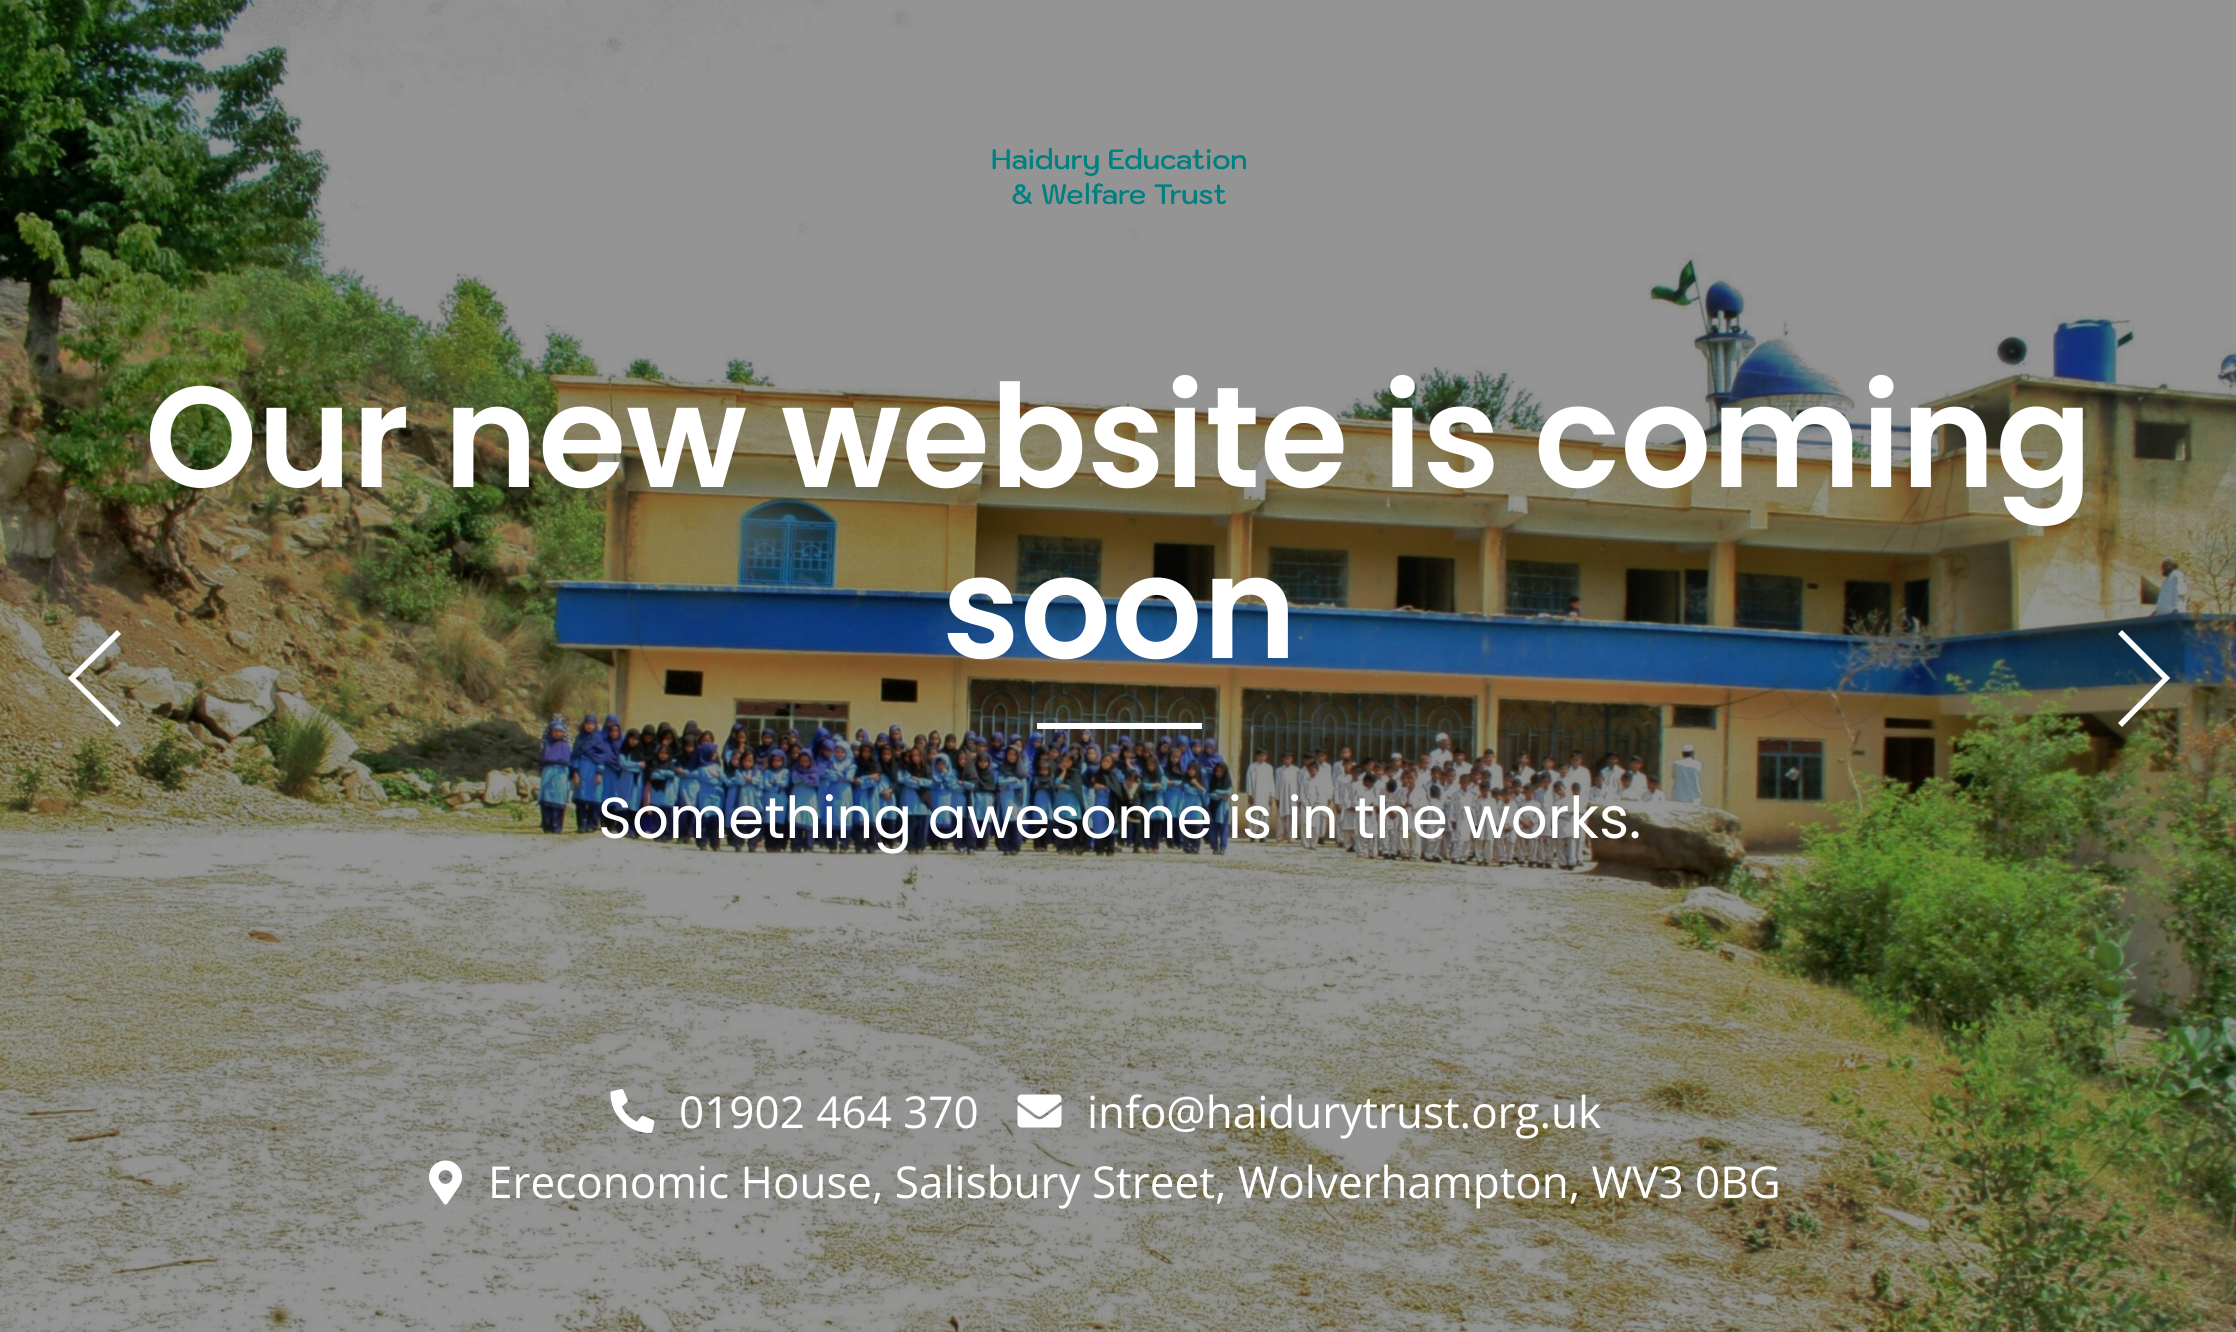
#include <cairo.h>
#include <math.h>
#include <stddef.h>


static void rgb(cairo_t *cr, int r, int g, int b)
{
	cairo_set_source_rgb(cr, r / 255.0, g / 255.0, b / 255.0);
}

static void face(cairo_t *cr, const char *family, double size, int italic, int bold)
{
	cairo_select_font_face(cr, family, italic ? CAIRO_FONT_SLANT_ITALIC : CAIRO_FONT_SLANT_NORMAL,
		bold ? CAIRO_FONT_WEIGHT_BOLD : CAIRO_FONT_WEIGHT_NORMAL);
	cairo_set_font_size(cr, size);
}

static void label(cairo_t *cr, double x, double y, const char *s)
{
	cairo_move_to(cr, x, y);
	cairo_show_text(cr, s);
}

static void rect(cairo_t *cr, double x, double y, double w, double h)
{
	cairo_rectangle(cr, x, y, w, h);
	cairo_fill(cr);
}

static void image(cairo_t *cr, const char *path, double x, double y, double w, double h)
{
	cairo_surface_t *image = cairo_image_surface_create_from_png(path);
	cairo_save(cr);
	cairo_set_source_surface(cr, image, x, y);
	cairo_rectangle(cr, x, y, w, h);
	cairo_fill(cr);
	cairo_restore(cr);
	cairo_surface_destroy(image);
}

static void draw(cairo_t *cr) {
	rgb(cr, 255, 255, 255);
	cairo_paint(cr);
	image(cr, "image0.png", 0, 0, 2236, 1332);
	rgb(cr, 255, 255, 255);
	cairo_new_path(cr);
	cairo_move_to(cr, 68, 678);
	cairo_line_to(cr, 117, 630);
	cairo_line_to(cr, 121, 634);
	cairo_line_to(cr, 72, 682);
	cairo_close_path(cr);
	cairo_fill(cr);
	cairo_new_path(cr);
	cairo_move_to(cr, 68, 678);
	cairo_line_to(cr, 72, 675);
	cairo_line_to(cr, 121, 723);
	cairo_line_to(cr, 117, 727);
	cairo_close_path(cr);
	cairo_fill(cr);
	cairo_new_path(cr);
	cairo_move_to(cr, 2170, 678);
	cairo_line_to(cr, 2122, 727);
	cairo_line_to(cr, 2118, 723);
	cairo_line_to(cr, 2166, 675);
	cairo_close_path(cr);
	cairo_fill(cr);
	cairo_new_path(cr);
	cairo_move_to(cr, 2170, 678);
	cairo_line_to(cr, 2166, 682);
	cairo_line_to(cr, 2118, 634);
	cairo_line_to(cr, 2122, 630);
	cairo_close_path(cr);
	cairo_fill(cr);
	image(cr, "image1.png", 992, 147, 255, 58);
	face(cr, "Poppins SemiBold", 143, 0, 0);
	label(cr, 145, 487, "Our new website is coming");
	label(cr, 942, 658, "soon");
	rect(cr, 1037, 723, 165, 6);
	face(cr, "Poppins", 57.75, 0, 0);
	label(cr, 598, 838, "Something awesome is in the works.");
	image(cr, "image2.png", 610, 1089, 45, 44);
	face(cr, "Open Sans", 44, 0, 0);
	label(cr, 679, 1128, "01902 464 370");
	image(cr, "image3.png", 1017, 1094, 45, 34);
	label(cr, 1087, 1128, "info@haidurytrust.org.uk");
	image(cr, "image4.png", 429, 1160, 33, 45);
	label(cr, 488, 1198, "Ereconomic House, Salisbury Street, Wolverhampton, WV3 0BG");
}

int main(void) {
	cairo_surface_t *surface = cairo_image_surface_create(CAIRO_FORMAT_RGB24, 2236, 1332);
	cairo_t *cr = cairo_create(surface);
	cairo_font_options_t *options = cairo_font_options_create();
	cairo_font_options_set_hint_metrics(options, CAIRO_HINT_METRICS_OFF);
	cairo_font_options_set_hint_style(options, CAIRO_HINT_STYLE_NONE);
	cairo_set_font_options(cr, options);
	cairo_set_miter_limit(cr, 4);
	draw(cr);
	cairo_surface_write_to_png(surface, "render.png");
	cairo_font_options_destroy(options);
	cairo_destroy(cr);
	cairo_surface_destroy(surface);
	return 0;
}
